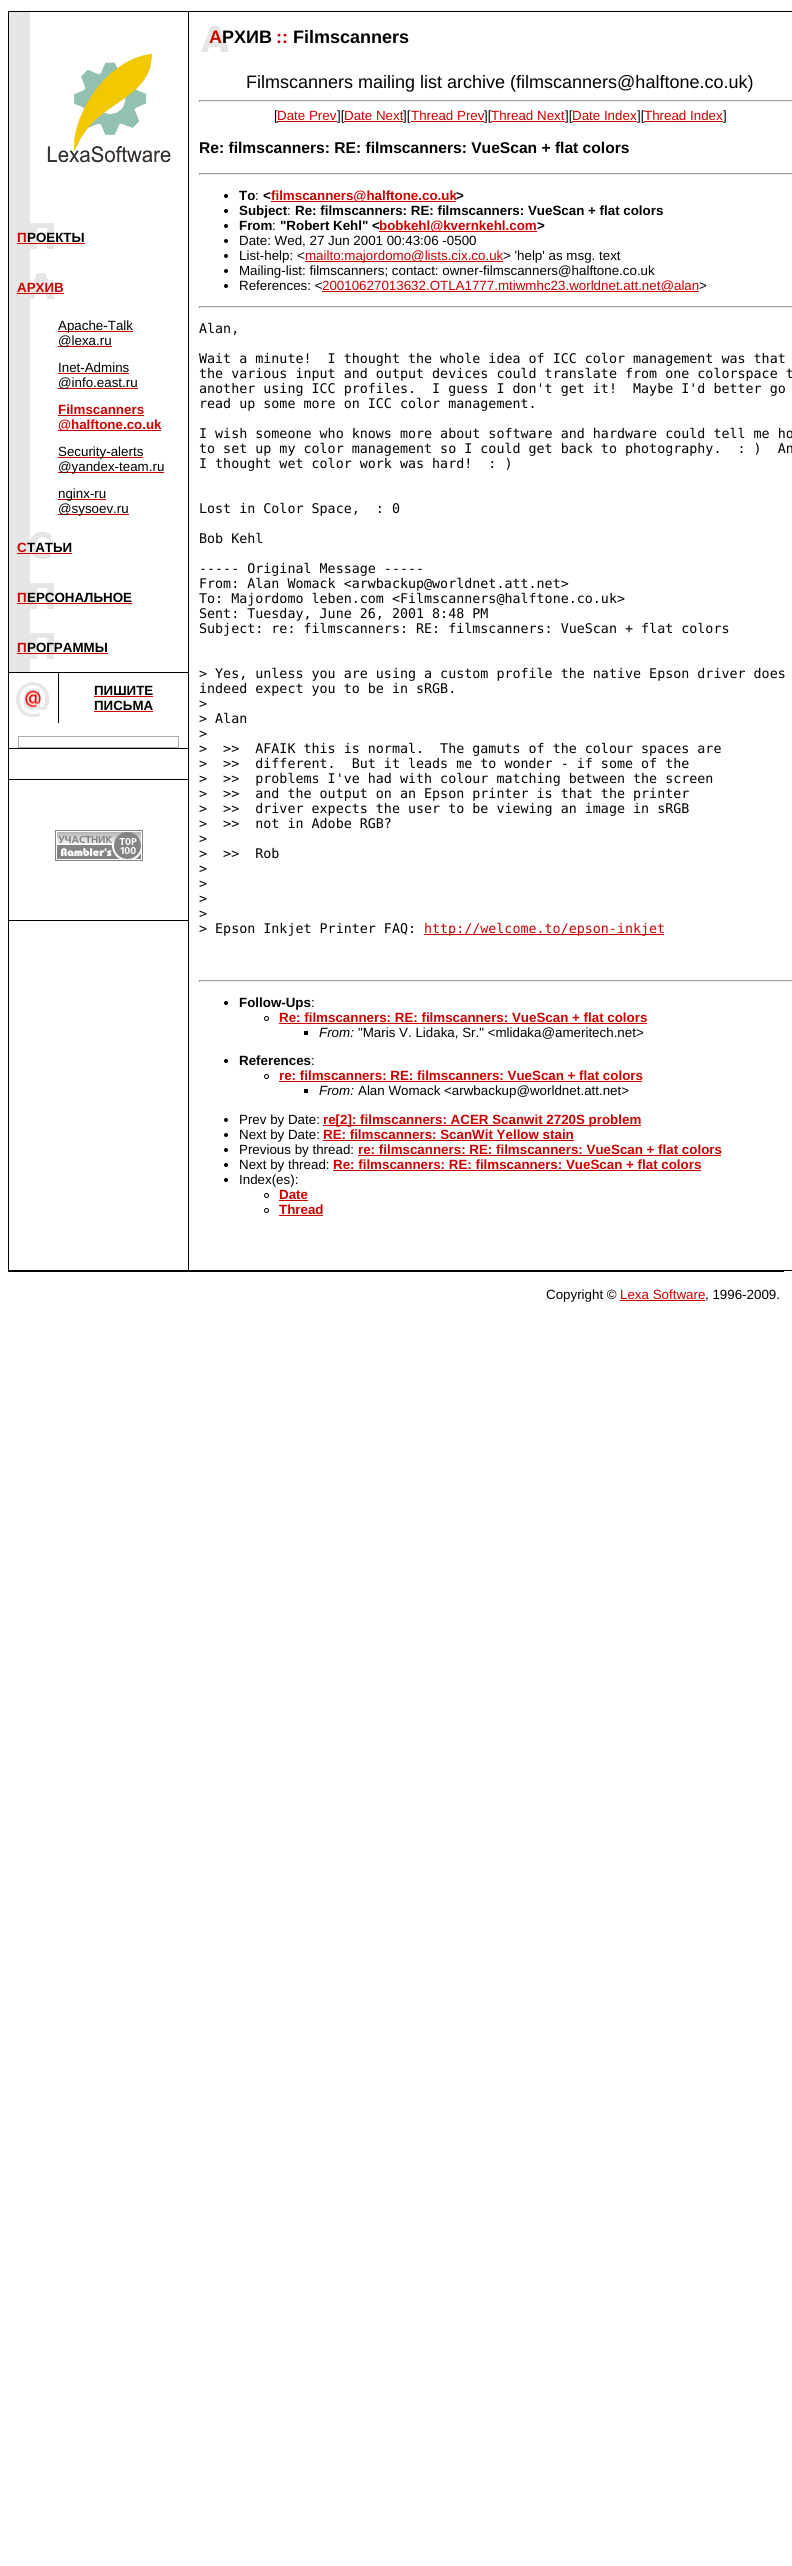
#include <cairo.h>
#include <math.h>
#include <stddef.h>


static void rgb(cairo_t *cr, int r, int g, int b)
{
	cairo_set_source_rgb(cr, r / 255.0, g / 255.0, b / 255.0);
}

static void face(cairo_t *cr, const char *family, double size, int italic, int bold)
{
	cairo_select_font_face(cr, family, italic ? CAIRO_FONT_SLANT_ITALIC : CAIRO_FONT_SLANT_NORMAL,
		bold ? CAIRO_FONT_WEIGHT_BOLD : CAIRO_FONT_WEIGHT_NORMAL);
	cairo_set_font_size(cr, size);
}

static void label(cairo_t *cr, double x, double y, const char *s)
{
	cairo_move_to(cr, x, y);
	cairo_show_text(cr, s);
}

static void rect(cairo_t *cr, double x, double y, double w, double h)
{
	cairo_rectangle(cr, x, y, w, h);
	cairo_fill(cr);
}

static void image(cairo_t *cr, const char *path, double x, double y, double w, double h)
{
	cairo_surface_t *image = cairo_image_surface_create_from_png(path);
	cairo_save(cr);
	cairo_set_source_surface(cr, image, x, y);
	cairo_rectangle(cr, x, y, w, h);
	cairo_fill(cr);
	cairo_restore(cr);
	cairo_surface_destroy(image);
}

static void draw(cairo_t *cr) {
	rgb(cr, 255, 255, 255);
	cairo_paint(cr);
	rgb(cr, 0, 0, 0);
	rect(cr, 8, 11, 784, 1);
	rect(cr, 8, 12, 1, 1258);
	image(cr, "image0.png", 9, 12, 162, 200);
	rgb(cr, 230, 230, 230);
	rect(cr, 9, 212, 1, 460);
	image(cr, "image1.png", 10, 212, 44, 50);
	face(cr, "Liberation Sans", 13.35, 0, 1);
	rgb(cr, 204, 0, 0);
	label(cr, 17, 242, "П");
	rgb(cr, 0, 0, 0);
	label(cr, 27, 242, "РОЕКТЫ");
	rgb(cr, 204, 0, 0);
	rect(cr, 17, 243, 68, 1);
	image(cr, "image2.png", 10, 262, 45, 50);
	label(cr, 17, 292, "АРХИВ");
	rect(cr, 17, 293, 47, 1);
	rgb(cr, 230, 230, 230);
	rect(cr, 10, 312, 20, 210);
	rgb(cr, 204, 0, 0);
	rect(cr, 58, 331, 75, 1);
	face(cr, "Liberation Sans", 13.35, 0, 0);
	rgb(cr, 0, 0, 0);
	label(cr, 58, 330, "Apache-Talk");
	rgb(cr, 204, 0, 0);
	rect(cr, 58, 346, 54, 1);
	rgb(cr, 0, 0, 0);
	label(cr, 58, 345, "@lexa.ru");
	label(cr, 58, 372, "Inet-Admins");
	rgb(cr, 204, 0, 0);
	rect(cr, 58, 373, 71, 1);
	rect(cr, 58, 388, 80, 1);
	rgb(cr, 0, 0, 0);
	label(cr, 58, 387, "@info.east.ru");
	face(cr, "Liberation Sans", 13.35, 0, 1);
	rgb(cr, 204, 0, 0);
	label(cr, 58, 414, "Filmscanners");
	rect(cr, 58, 415, 86, 1);
	rect(cr, 58, 430, 103, 1);
	label(cr, 58, 429, "@halftone.co.uk");
	rect(cr, 58, 457, 85, 1);
	face(cr, "Liberation Sans", 13.35, 0, 0);
	rgb(cr, 0, 0, 0);
	label(cr, 58, 456, "Security-alerts");
	rgb(cr, 204, 0, 0);
	rect(cr, 58, 472, 106, 1);
	rgb(cr, 0, 0, 0);
	label(cr, 58, 471, "@yandex-team.ru");
	rgb(cr, 204, 0, 0);
	rect(cr, 58, 499, 48, 1);
	rgb(cr, 0, 0, 0);
	label(cr, 58, 498, "nginx-ru");
	rgb(cr, 204, 0, 0);
	rect(cr, 58, 514, 71, 1);
	rgb(cr, 0, 0, 0);
	label(cr, 58, 513, "@sysoev.ru");
	image(cr, "image3.png", 10, 522, 41, 50);
	face(cr, "Liberation Sans", 13.35, 0, 1);
	rgb(cr, 204, 0, 0);
	label(cr, 17, 552, "С");
	rect(cr, 17, 553, 55, 1);
	rgb(cr, 0, 0, 0);
	label(cr, 27, 552, "ТАТЬИ");
	image(cr, "image1.png", 10, 572, 44, 50);
	rgb(cr, 204, 0, 0);
	label(cr, 17, 602, "П");
	rgb(cr, 0, 0, 0);
	label(cr, 27, 602, "ЕРСОНАЛЬНОЕ");
	rgb(cr, 204, 0, 0);
	rect(cr, 17, 603, 115, 1);
	image(cr, "image1.png", 10, 622, 44, 50);
	label(cr, 17, 652, "П");
	rgb(cr, 0, 0, 0);
	label(cr, 27, 652, "РОГРАММЫ");
	rgb(cr, 204, 0, 0);
	rect(cr, 17, 653, 91, 1);
	rgb(cr, 0, 0, 0);
	rect(cr, 9, 672, 179, 1);
	image(cr, "image4.png", 16, 673, 43, 50);
	label(cr, 94, 695, "ПИШИТЕ");
	rgb(cr, 204, 0, 0);
	rect(cr, 94, 696, 59, 1);
	rgb(cr, 0, 0, 0);
	label(cr, 94, 710, "ПИСЬМА");
	rgb(cr, 204, 0, 0);
	rect(cr, 94, 711, 59, 1);
	rgb(cr, 170, 170, 170);
	rect(cr, 18, 736, 161, 12);
	rgb(cr, 255, 255, 255);
	rect(cr, 19, 737, 159, 10);
	rgb(cr, 0, 0, 0);
	rect(cr, 9, 748, 179, 1);
	rect(cr, 9, 779, 179, 1);
	image(cr, "image5.png", 55, 830, 88, 31);
	rect(cr, 9, 920, 179, 1);
	rect(cr, 188, 12, 1, 1258);
	image(cr, "image6.png", 201, 26, 28, 26);
	face(cr, "Liberation Sans", 18, 0, 1);
	rgb(cr, 204, 0, 0);
	label(cr, 209, 43, "А");
	rgb(cr, 0, 0, 0);
	label(cr, 222, 43, "РХИВ");
	rgb(cr, 204, 0, 0);
	label(cr, 276, 43, "::");
	rgb(cr, 0, 0, 0);
	label(cr, 293, 43, "Filmscanners");
	face(cr, "Liberation Sans", 18, 0, 0);
	label(cr, 246, 88, "Filmscanners mailing list archive (filmscanners@halftone.co.uk)");
	rgb(cr, 159, 159, 159);
	rect(cr, 199, 100, 593, 1);
	rgb(cr, 238, 238, 238);
	rect(cr, 199, 101, 593, 1);
	rgb(cr, 159, 159, 159);
	rect(cr, 199, 100, 1, 2);
	face(cr, "Liberation Sans", 13.35, 0, 0);
	rgb(cr, 0, 0, 0);
	label(cr, 274, 120, "[");
	rgb(cr, 204, 0, 0);
	label(cr, 277, 120, "Date Prev");
	rect(cr, 277, 121, 60, 1);
	rgb(cr, 0, 0, 0);
	label(cr, 337, 120, "][");
	rgb(cr, 204, 0, 0);
	label(cr, 344, 120, "Date Next");
	rect(cr, 344, 121, 59, 1);
	rgb(cr, 0, 0, 0);
	label(cr, 403, 120, "][");
	rgb(cr, 204, 0, 0);
	label(cr, 411, 120, "Thread Prev");
	rect(cr, 411, 121, 73, 1);
	rgb(cr, 0, 0, 0);
	label(cr, 484, 120, "][");
	rgb(cr, 204, 0, 0);
	label(cr, 491, 120, "Thread Next");
	rect(cr, 491, 121, 74, 1);
	rgb(cr, 0, 0, 0);
	label(cr, 565, 120, "][");
	rgb(cr, 204, 0, 0);
	label(cr, 572, 120, "Date Index");
	rect(cr, 572, 121, 65, 1);
	rgb(cr, 0, 0, 0);
	label(cr, 637, 120, "][");
	rgb(cr, 204, 0, 0);
	label(cr, 644, 120, "Thread Index");
	rect(cr, 644, 121, 79, 1);
	rgb(cr, 0, 0, 0);
	label(cr, 723, 120, "]");
	face(cr, "Liberation Sans", 15.6, 0, 1);
	label(cr, 199, 153, "Re: filmscanners: RE: filmscanners: VueScan + flat colors");
	rgb(cr, 159, 159, 159);
	rect(cr, 199, 173, 593, 1);
	rgb(cr, 238, 238, 238);
	rect(cr, 199, 174, 593, 1);
	rgb(cr, 159, 159, 159);
	rect(cr, 199, 173, 1, 2);
	rgb(cr, 0, 0, 0);
	cairo_new_path(cr);
	cairo_arc(cr, 226, 196, 2, 0, 2 * M_PI);
	cairo_fill(cr);
	face(cr, "Liberation Sans", 13.35, 0, 1);
	label(cr, 239, 200, "To");
	face(cr, "Liberation Sans", 13.35, 0, 0);
	label(cr, 255, 200, ":");
	face(cr, "Liberation Sans", 13.35, 0, 1);
	label(cr, 263, 200, "<");
	rgb(cr, 204, 0, 0);
	rect(cr, 271, 201, 185, 1);
	label(cr, 271, 200, "filmscanners@halftone.co.uk");
	rgb(cr, 0, 0, 0);
	label(cr, 456, 200, ">");
	cairo_new_path(cr);
	cairo_arc(cr, 226, 211, 2, 0, 2 * M_PI);
	cairo_fill(cr);
	label(cr, 239, 215, "Subject");
	face(cr, "Liberation Sans", 13.35, 0, 0);
	label(cr, 287, 215, ":");
	face(cr, "Liberation Sans", 13.35, 0, 1);
	label(cr, 295, 215, "Re: filmscanners: RE: filmscanners: VueScan + flat colors");
	cairo_new_path(cr);
	cairo_arc(cr, 226, 226, 2, 0, 2 * M_PI);
	cairo_fill(cr);
	label(cr, 239, 230, "From");
	face(cr, "Liberation Sans", 13.35, 0, 0);
	label(cr, 272, 230, ":");
	face(cr, "Liberation Sans", 13.35, 0, 1);
	label(cr, 280, 230, "\"Robert Kehl\" <");
	rgb(cr, 204, 0, 0);
	rect(cr, 379, 231, 158, 1);
	label(cr, 379, 230, "bobkehl@kvernkehl.com");
	rgb(cr, 0, 0, 0);
	label(cr, 537, 230, ">");
	cairo_new_path(cr);
	cairo_arc(cr, 226, 241, 2, 0, 2 * M_PI);
	cairo_fill(cr);
	face(cr, "Liberation Sans", 13.35, 0, 0);
	label(cr, 239, 245, "Date: Wed, 27 Jun 2001 00:43:06 -0500");
	cairo_new_path(cr);
	cairo_arc(cr, 226, 256, 2, 0, 2 * M_PI);
	cairo_fill(cr);
	label(cr, 239, 260, "List-help: <");
	rgb(cr, 204, 0, 0);
	rect(cr, 305, 261, 198, 1);
	label(cr, 305, 260, "mailto:majordomo@lists.cix.co.uk");
	rgb(cr, 0, 0, 0);
	label(cr, 503, 260, "> 'help' as msg. text");
	cairo_new_path(cr);
	cairo_arc(cr, 226, 271, 2, 0, 2 * M_PI);
	cairo_fill(cr);
	label(cr, 239, 275, "Mailing-list: filmscanners; contact: owner-filmscanners@halftone.co.uk");
	cairo_new_path(cr);
	cairo_arc(cr, 226, 286, 2, 0, 2 * M_PI);
	cairo_fill(cr);
	label(cr, 239, 290, "References: <");
	rgb(cr, 204, 0, 0);
	rect(cr, 322, 291, 377, 1);
	label(cr, 322, 290, "20010627013632.OTLA1777.mtiwmhc23.worldnet.att.net@alan");
	rgb(cr, 0, 0, 0);
	label(cr, 699, 290, ">");
	rgb(cr, 159, 159, 159);
	rect(cr, 199, 306, 593, 1);
	rgb(cr, 238, 238, 238);
	rect(cr, 199, 307, 593, 1);
	rgb(cr, 159, 159, 159);
	rect(cr, 199, 306, 1, 2);
	face(cr, "DejaVu Sans Mono", 13.35, 0, 0);
	rgb(cr, 0, 0, 0);
	label(cr, 199, 333, "Alan,");
	label(cr, 199, 363, "Wait a minute!  I thought the whole idea of ICC color management was that");
	label(cr, 199, 378, "the various input and output devices could translate from one colorspace t");
	label(cr, 199, 393, "another using ICC profiles.  I guess I don't get it!  Maybe I'd better go");
	label(cr, 199, 408, "read up some more on ICC color management.");
	label(cr, 199, 438, "I wish someone who knows more about software and hardware could tell me ho");
	label(cr, 199, 453, "to set up my color management so I could get back to photography.  : )  An");
	label(cr, 199, 468, "I thought wet color work was hard!  : )");
	label(cr, 199, 513, "Lost in Color Space,  : 0");
	label(cr, 199, 543, "Bob Kehl");
	label(cr, 199, 573, "----- Original Message -----");
	label(cr, 199, 588, "From: Alan Womack <arwbackup@worldnet.att.net>");
	label(cr, 199, 603, "To: Majordomo leben.com <Filmscanners@halftone.co.uk>");
	label(cr, 199, 618, "Sent: Tuesday, June 26, 2001 8:48 PM");
	label(cr, 199, 633, "Subject: re: filmscanners: RE: filmscanners: VueScan + flat colors");
	label(cr, 199, 678, "> Yes, unless you are using a custom profile the native Epson driver does");
	label(cr, 199, 693, "indeed expect you to be in sRGB.");
	label(cr, 199, 708, ">");
	label(cr, 199, 723, "> Alan");
	label(cr, 199, 738, ">");
	label(cr, 199, 753, ">  >>  AFAIK this is normal.  The gamuts of the colour spaces are");
	label(cr, 199, 768, ">  >>  different.  But it leads me to wonder - if some of the");
	label(cr, 199, 783, ">  >>  problems I've had with colour matching between the screen");
	label(cr, 199, 798, ">  >>  and the output on an Epson printer is that the printer");
	label(cr, 199, 813, ">  >>  driver expects the user to be viewing an image in sRGB");
	label(cr, 199, 828, ">  >>  not in Adobe RGB?");
	label(cr, 199, 843, ">");
	label(cr, 199, 858, ">  >>  Rob");
	label(cr, 199, 873, ">");
	label(cr, 199, 888, ">");
	label(cr, 199, 903, ">");
	label(cr, 199, 918, ">");
	label(cr, 199, 933, "> Epson Inkjet Printer FAQ:");
	rgb(cr, 204, 0, 0);
	rect(cr, 424, 934, 240, 1);
	label(cr, 424, 933, "http://welcome.to/epson-inkjet");
	rgb(cr, 159, 159, 159);
	rect(cr, 199, 980, 593, 1);
	rgb(cr, 238, 238, 238);
	rect(cr, 199, 981, 593, 1);
	rgb(cr, 159, 159, 159);
	rect(cr, 199, 980, 1, 2);
	rgb(cr, 0, 0, 0);
	cairo_new_path(cr);
	cairo_arc(cr, 226, 1003, 2, 0, 2 * M_PI);
	cairo_fill(cr);
	face(cr, "Liberation Sans", 13.35, 0, 1);
	label(cr, 239, 1007, "Follow-Ups");
	face(cr, "Liberation Sans", 13.35, 0, 0);
	label(cr, 311, 1007, ":");
	cairo_new_path(cr);
	cairo_arc(cr, 266.5, 1018.5, 2, 0, 2 * M_PI);
	cairo_set_line_width(cr, 1);
	cairo_stroke(cr);
	face(cr, "Liberation Sans", 13.35, 0, 1);
	rgb(cr, 204, 0, 0);
	label(cr, 279, 1022, "Re: filmscanners: RE: filmscanners: VueScan + flat colors");
	rect(cr, 279, 1023, 368, 1);
	rgb(cr, 0, 0, 0);
	rect(cr, 304, 1031, 4, 4);
	face(cr, "Liberation Sans", 13.35, 1, 0);
	label(cr, 319, 1037, "From:");
	face(cr, "Liberation Sans", 13.35, 0, 0);
	label(cr, 358, 1037, "\"Maris V. Lidaka, Sr.\" <mlidaka@ameritech.net>");
	cairo_new_path(cr);
	cairo_arc(cr, 226, 1061, 2, 0, 2 * M_PI);
	cairo_fill(cr);
	face(cr, "Liberation Sans", 13.35, 0, 1);
	label(cr, 239, 1065, "References");
	face(cr, "Liberation Sans", 13.35, 0, 0);
	label(cr, 311, 1065, ":");
	cairo_new_path(cr);
	cairo_arc(cr, 266.5, 1076.5, 2, 0, 2 * M_PI);
	cairo_stroke(cr);
	face(cr, "Liberation Sans", 13.35, 0, 1);
	rgb(cr, 204, 0, 0);
	label(cr, 279, 1080, "re: filmscanners: RE: filmscanners: VueScan + flat colors");
	rect(cr, 279, 1081, 363, 1);
	rgb(cr, 0, 0, 0);
	rect(cr, 304, 1089, 4, 4);
	face(cr, "Liberation Sans", 13.35, 1, 0);
	label(cr, 319, 1095, "From:");
	face(cr, "Liberation Sans", 13.35, 0, 0);
	label(cr, 358, 1095, "Alan Womack <arwbackup@worldnet.att.net>");
	cairo_new_path(cr);
	cairo_arc(cr, 226, 1120, 2, 0, 2 * M_PI);
	cairo_fill(cr);
	label(cr, 239, 1124, "Prev by Date:");
	rgb(cr, 204, 0, 0);
	rect(cr, 323, 1125, 318, 1);
	face(cr, "Liberation Sans", 13.35, 0, 1);
	label(cr, 323, 1124, "re[2]: filmscanners: ACER Scanwit 2720S problem");
	rgb(cr, 0, 0, 0);
	cairo_new_path(cr);
	cairo_arc(cr, 226, 1135, 2, 0, 2 * M_PI);
	cairo_fill(cr);
	face(cr, "Liberation Sans", 13.35, 0, 0);
	label(cr, 239, 1139, "Next by Date:");
	face(cr, "Liberation Sans", 13.35, 0, 1);
	rgb(cr, 204, 0, 0);
	label(cr, 323, 1139, "RE: filmscanners: ScanWit Yellow stain");
	rect(cr, 323, 1140, 251, 1);
	rgb(cr, 0, 0, 0);
	cairo_new_path(cr);
	cairo_arc(cr, 226, 1150, 2, 0, 2 * M_PI);
	cairo_fill(cr);
	face(cr, "Liberation Sans", 13.35, 0, 0);
	label(cr, 239, 1154, "Previous by thread:");
	face(cr, "Liberation Sans", 13.35, 0, 1);
	rgb(cr, 204, 0, 0);
	label(cr, 358, 1154, "re: filmscanners: RE: filmscanners: VueScan + flat colors");
	rect(cr, 358, 1155, 363, 1);
	rgb(cr, 0, 0, 0);
	cairo_new_path(cr);
	cairo_arc(cr, 226, 1165, 2, 0, 2 * M_PI);
	cairo_fill(cr);
	face(cr, "Liberation Sans", 13.35, 0, 0);
	label(cr, 239, 1169, "Next by thread:");
	face(cr, "Liberation Sans", 13.35, 0, 1);
	rgb(cr, 204, 0, 0);
	label(cr, 333, 1169, "Re: filmscanners: RE: filmscanners: VueScan + flat colors");
	rect(cr, 333, 1170, 368, 1);
	rgb(cr, 0, 0, 0);
	cairo_new_path(cr);
	cairo_arc(cr, 226, 1180, 2, 0, 2 * M_PI);
	cairo_fill(cr);
	face(cr, "Liberation Sans", 13.35, 0, 0);
	label(cr, 239, 1184, "Index(es):");
	cairo_new_path(cr);
	cairo_arc(cr, 266.5, 1195.5, 2, 0, 2 * M_PI);
	cairo_stroke(cr);
	face(cr, "Liberation Sans", 13.35, 0, 1);
	rgb(cr, 204, 0, 0);
	label(cr, 279, 1199, "Date");
	rect(cr, 279, 1200, 29, 1);
	cairo_new_path(cr);
	cairo_arc(cr, 266.5, 1210.5, 2, 0, 2 * M_PI);
	rgb(cr, 0, 0, 0);
	cairo_stroke(cr);
	rgb(cr, 204, 0, 0);
	label(cr, 279, 1214, "Thread");
	rect(cr, 279, 1215, 44, 1);
	rgb(cr, 0, 0, 0);
	rect(cr, 8, 1270, 784, 1);
	rect(cr, 8, 1271, 776, 1);
	face(cr, "Liberation Sans", 13.35, 0, 0);
	label(cr, 546, 1299, "Copyright ©");
	rgb(cr, 204, 0, 0);
	label(cr, 620, 1299, "Lexa Software");
	rect(cr, 620, 1300, 85, 1);
	rgb(cr, 0, 0, 0);
	label(cr, 705, 1299, ", 1996-2009.");
}

int main(void) {
	cairo_surface_t *surface = cairo_image_surface_create(CAIRO_FORMAT_RGB24, 792, 2566);
	cairo_t *cr = cairo_create(surface);
	cairo_font_options_t *options = cairo_font_options_create();
	cairo_font_options_set_hint_metrics(options, CAIRO_HINT_METRICS_OFF);
	cairo_font_options_set_hint_style(options, CAIRO_HINT_STYLE_NONE);
	cairo_set_font_options(cr, options);
	cairo_set_miter_limit(cr, 4);
	draw(cr);
	cairo_surface_write_to_png(surface, "render.png");
	cairo_font_options_destroy(options);
	cairo_destroy(cr);
	cairo_surface_destroy(surface);
	return 0;
}
